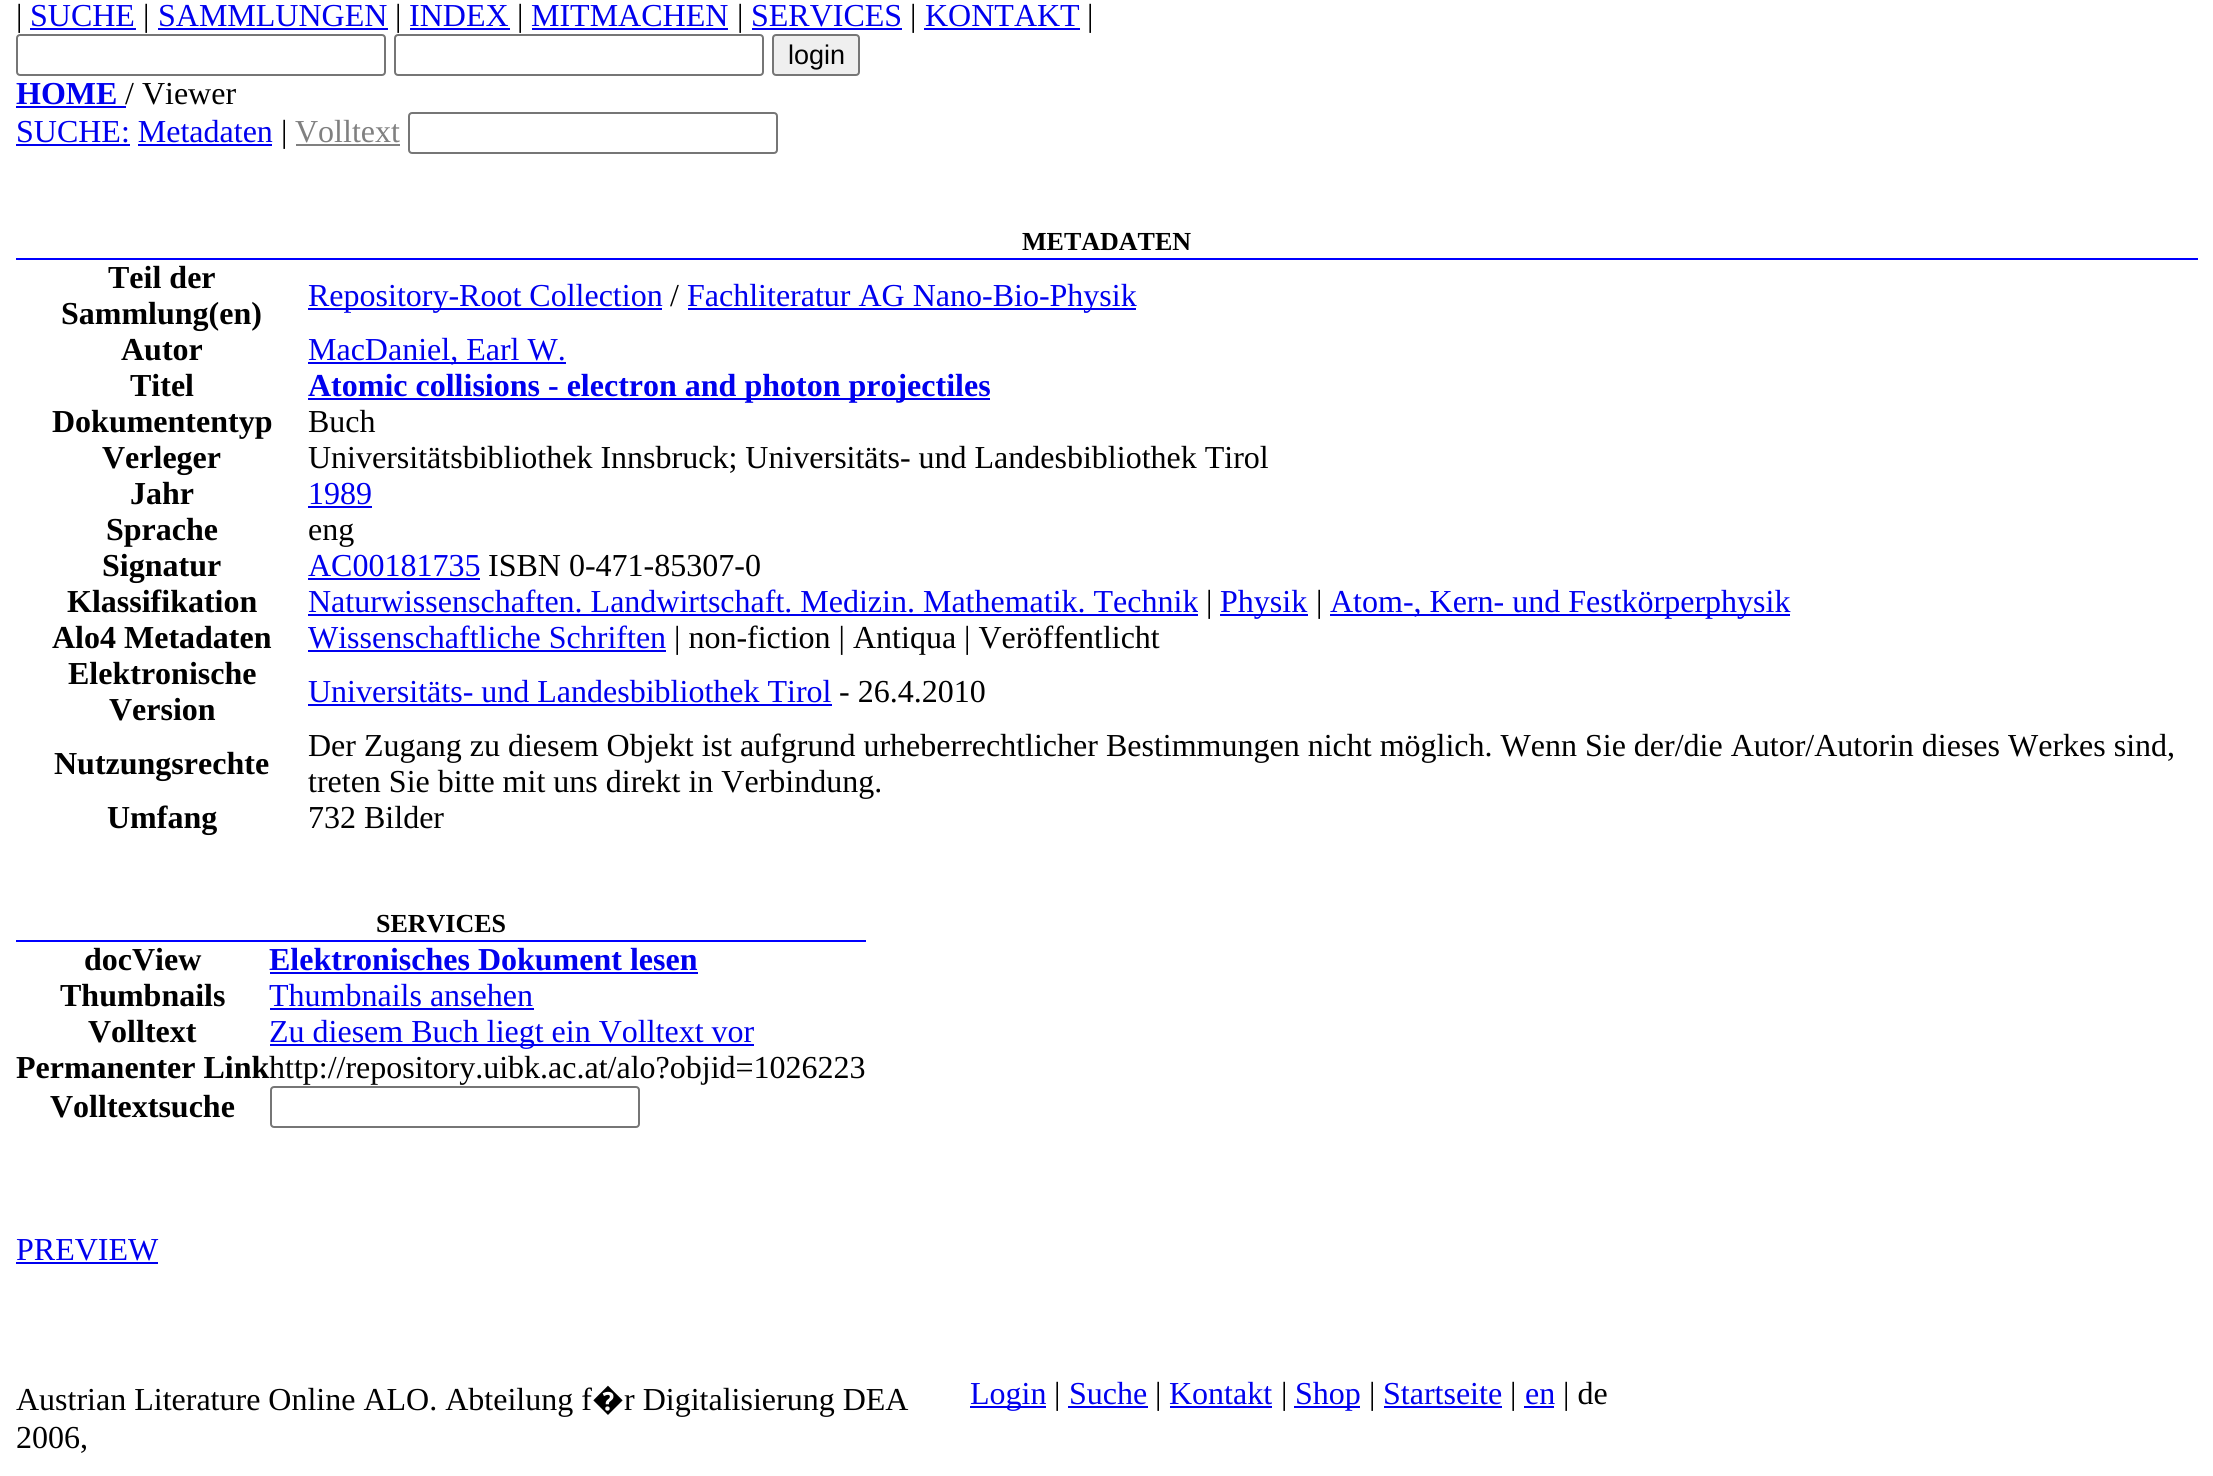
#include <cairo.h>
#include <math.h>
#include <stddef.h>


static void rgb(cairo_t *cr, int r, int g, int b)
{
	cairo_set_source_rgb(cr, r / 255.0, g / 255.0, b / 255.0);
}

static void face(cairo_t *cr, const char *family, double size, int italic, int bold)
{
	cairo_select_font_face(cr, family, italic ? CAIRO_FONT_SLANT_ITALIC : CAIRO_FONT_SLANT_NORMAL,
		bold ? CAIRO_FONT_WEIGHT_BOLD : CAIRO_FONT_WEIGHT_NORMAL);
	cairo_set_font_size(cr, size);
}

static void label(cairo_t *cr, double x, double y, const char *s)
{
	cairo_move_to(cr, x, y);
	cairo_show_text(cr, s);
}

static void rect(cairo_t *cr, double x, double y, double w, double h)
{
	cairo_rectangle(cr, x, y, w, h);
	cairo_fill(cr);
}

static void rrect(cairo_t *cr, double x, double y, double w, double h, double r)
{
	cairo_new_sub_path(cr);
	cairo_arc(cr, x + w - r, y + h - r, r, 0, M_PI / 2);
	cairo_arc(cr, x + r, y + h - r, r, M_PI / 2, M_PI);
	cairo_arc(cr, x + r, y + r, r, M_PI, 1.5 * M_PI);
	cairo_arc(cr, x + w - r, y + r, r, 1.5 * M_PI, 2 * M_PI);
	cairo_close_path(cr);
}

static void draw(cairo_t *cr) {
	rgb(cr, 255, 255, 255);
	cairo_paint(cr);
	face(cr, "Liberation Serif", 32, 0, 0);
	rgb(cr, 0, 0, 0);
	label(cr, 16, 26, "|");
	rgb(cr, 0, 0, 238);
	label(cr, 30, 26, "SUCHE");
	rect(cr, 30, 28, 106, 2);
	rgb(cr, 0, 0, 0);
	label(cr, 143, 26, "|");
	rgb(cr, 0, 0, 238);
	label(cr, 158, 26, "SAMMLUNGEN");
	rect(cr, 158, 28, 230, 2);
	rgb(cr, 0, 0, 0);
	label(cr, 395, 26, "|");
	rgb(cr, 0, 0, 238);
	label(cr, 409, 26, "INDEX");
	rect(cr, 410, 28, 100, 2);
	rgb(cr, 0, 0, 0);
	label(cr, 517, 26, "|");
	rgb(cr, 0, 0, 238);
	label(cr, 531, 26, "MITMACHEN");
	rect(cr, 532, 28, 196, 2);
	rgb(cr, 0, 0, 0);
	label(cr, 737, 26, "|");
	rgb(cr, 0, 0, 238);
	label(cr, 751, 26, "SERVICES");
	rect(cr, 752, 28, 150, 2);
	rgb(cr, 0, 0, 0);
	label(cr, 910, 26, "|");
	rgb(cr, 0, 0, 238);
	label(cr, 925, 26, "KONTAKT");
	rect(cr, 924, 28, 156, 2);
	rgb(cr, 0, 0, 0);
	label(cr, 1087, 26, "|");
	rrect(cr, 17, 35, 368, 40, 3);
	rgb(cr, 118, 118, 118);
	cairo_stroke(cr);
	rrect(cr, 395, 35, 368, 40, 3);
	cairo_stroke(cr);
	rgb(cr, 239, 239, 239);
	rrect(cr, 773, 35, 86, 40, 3);
	cairo_fill_preserve(cr);
	rgb(cr, 118, 118, 118);
	cairo_stroke(cr);
	face(cr, "Liberation Sans", 27, 0, 0);
	rgb(cr, 0, 0, 0);
	label(cr, 788, 64, "login");
	face(cr, "Liberation Serif", 32, 0, 1);
	rgb(cr, 0, 0, 238);
	label(cr, 16, 104, "HOME");
	rect(cr, 16, 106, 110, 2);
	face(cr, "Liberation Serif", 32, 0, 0);
	rgb(cr, 0, 0, 0);
	label(cr, 125, 104, "/ Viewer");
	rgb(cr, 0, 0, 238);
	label(cr, 16, 142, "SUCHE: Metadaten");
	rect(cr, 16, 144, 114, 2);
	rgb(cr, 0, 0, 0);
	label(cr, 281, 142, "|");
	rgb(cr, 128, 128, 128);
	label(cr, 295, 142, "Volltext");
	rect(cr, 296, 144, 104, 2);
	rrect(cr, 409, 113, 368, 40, 3);
	rgb(cr, 118, 118, 118);
	cairo_stroke(cr);
	rgb(cr, 0, 0, 238);
	rect(cr, 138, 144, 134, 2);
	rgb(cr, 0, 0, 255);
	rect(cr, 16, 258, 2182, 2);
	face(cr, "Liberation Serif", 26, 0, 1);
	rgb(cr, 0, 0, 0);
	label(cr, 1022, 250, "METADATEN");
	face(cr, "Liberation Serif", 32, 0, 1);
	label(cr, 108, 288, "Teil der");
	label(cr, 61, 324, "Sammlung(en)");
	rgb(cr, 0, 0, 238);
	rect(cr, 308, 308, 354, 2);
	face(cr, "Liberation Serif", 32, 0, 0);
	label(cr, 308, 306, "Repository-Root Collection");
	rgb(cr, 0, 0, 0);
	label(cr, 670, 306, "/");
	rgb(cr, 0, 0, 238);
	rect(cr, 688, 308, 448, 2);
	label(cr, 687, 306, "Fachliteratur AG Nano-Bio-Physik");
	face(cr, "Liberation Serif", 32, 0, 1);
	rgb(cr, 0, 0, 0);
	label(cr, 121, 360, "Autor");
	rgb(cr, 0, 0, 238);
	rect(cr, 308, 362, 258, 2);
	face(cr, "Liberation Serif", 32, 0, 0);
	label(cr, 308, 360, "MacDaniel, Earl W.");
	face(cr, "Liberation Serif", 32, 0, 1);
	rgb(cr, 0, 0, 0);
	label(cr, 130, 396, "Titel");
	rgb(cr, 0, 0, 238);
	rect(cr, 308, 398, 682, 2);
	label(cr, 308, 396, "Atomic collisions - electron and photon projectiles");
	rgb(cr, 0, 0, 0);
	label(cr, 52, 432, "Dokumententyp");
	face(cr, "Liberation Serif", 32, 0, 0);
	label(cr, 308, 432, "Buch");
	face(cr, "Liberation Serif", 32, 0, 1);
	label(cr, 102, 468, "Verleger");
	face(cr, "Liberation Serif", 32, 0, 0);
	label(cr, 308, 468, "Universitätsbibliothek Innsbruck; Universitäts- und Landesbibliothek Tirol");
	face(cr, "Liberation Serif", 32, 0, 1);
	label(cr, 130, 504, "Jahr");
	face(cr, "Liberation Serif", 32, 0, 0);
	rgb(cr, 0, 0, 238);
	label(cr, 308, 504, "1989");
	rect(cr, 308, 506, 64, 2);
	face(cr, "Liberation Serif", 32, 0, 1);
	rgb(cr, 0, 0, 0);
	label(cr, 106, 540, "Sprache");
	face(cr, "Liberation Serif", 32, 0, 0);
	label(cr, 308, 540, "eng");
	face(cr, "Liberation Serif", 32, 0, 1);
	label(cr, 102, 576, "Signatur");
	face(cr, "Liberation Serif", 32, 0, 0);
	rgb(cr, 0, 0, 238);
	label(cr, 308, 576, "AC00181735");
	rect(cr, 308, 578, 172, 2);
	rgb(cr, 0, 0, 0);
	label(cr, 488, 576, "ISBN 0-471-85307-0");
	face(cr, "Liberation Serif", 32, 0, 1);
	label(cr, 67, 612, "Klassifikation");
	face(cr, "Liberation Serif", 32, 0, 0);
	rgb(cr, 0, 0, 238);
	label(cr, 308, 612, "Naturwissenschaften. Landwirtschaft. Medizin. Mathematik. Technik");
	rect(cr, 308, 614, 890, 2);
	rgb(cr, 0, 0, 0);
	label(cr, 1206, 612, "|");
	rgb(cr, 0, 0, 238);
	rect(cr, 1220, 614, 88, 2);
	label(cr, 1220, 612, "Physik");
	rgb(cr, 0, 0, 0);
	label(cr, 1316, 612, "|");
	rgb(cr, 0, 0, 238);
	rect(cr, 1330, 614, 460, 2);
	label(cr, 1330, 612, "Atom-, Kern- und Festkörperphysik");
	face(cr, "Liberation Serif", 32, 0, 1);
	rgb(cr, 0, 0, 0);
	label(cr, 52, 648, "Alo4 Metadaten");
	face(cr, "Liberation Serif", 32, 0, 0);
	rgb(cr, 0, 0, 238);
	label(cr, 308, 648, "Wissenschaftliche Schriften");
	rect(cr, 308, 650, 358, 2);
	rgb(cr, 0, 0, 0);
	label(cr, 674, 648, "| non-fiction | Antiqua | Veröffentlicht");
	face(cr, "Liberation Serif", 32, 0, 1);
	label(cr, 68, 684, "Elektronische");
	label(cr, 109, 720, "Version");
	face(cr, "Liberation Serif", 32, 0, 0);
	rgb(cr, 0, 0, 238);
	label(cr, 308, 702, "Universitäts- und Landesbibliothek Tirol");
	rect(cr, 308, 704, 524, 2);
	rgb(cr, 0, 0, 0);
	label(cr, 839, 702, "- 26.4.2010");
	face(cr, "Liberation Serif", 32, 0, 1);
	label(cr, 54, 774, "Nutzungsrechte");
	face(cr, "Liberation Serif", 32, 0, 0);
	label(cr, 308, 756, "Der Zugang zu diesem Objekt ist aufgrund urheberrechtlicher Bestimmungen nicht möglich. Wenn Sie der/die Autor/Autorin dieses Werkes sind,");
	label(cr, 308, 792, "treten Sie bitte mit uns direkt in Verbindung.");
	face(cr, "Liberation Serif", 32, 0, 1);
	label(cr, 107, 828, "Umfang");
	face(cr, "Liberation Serif", 32, 0, 0);
	label(cr, 308, 828, "732 Bilder");
	rgb(cr, 0, 0, 255);
	rect(cr, 16, 940, 850, 2);
	face(cr, "Liberation Serif", 26, 0, 1);
	rgb(cr, 0, 0, 0);
	label(cr, 376, 932, "SERVICES");
	face(cr, "Liberation Serif", 32, 0, 1);
	label(cr, 84, 970, "docView");
	rgb(cr, 0, 0, 238);
	label(cr, 269, 970, "Elektronisches Dokument lesen");
	rect(cr, 270, 972, 428, 2);
	rgb(cr, 0, 0, 0);
	label(cr, 60, 1006, "Thumbnails");
	face(cr, "Liberation Serif", 32, 0, 0);
	rgb(cr, 0, 0, 238);
	label(cr, 269, 1006, "Thumbnails ansehen");
	rect(cr, 270, 1008, 264, 2);
	face(cr, "Liberation Serif", 32, 0, 1);
	rgb(cr, 0, 0, 0);
	label(cr, 88, 1042, "Volltext");
	rgb(cr, 0, 0, 238);
	rect(cr, 270, 1044, 484, 2);
	face(cr, "Liberation Serif", 32, 0, 0);
	label(cr, 269, 1042, "Zu diesem Buch liegt ein Volltext vor");
	face(cr, "Liberation Serif", 32, 0, 1);
	rgb(cr, 0, 0, 0);
	label(cr, 16, 1078, "Permanenter Link");
	face(cr, "Liberation Serif", 32, 0, 0);
	label(cr, 269, 1078, "http://repository.uibk.ac.at/alo?objid=1026223");
	face(cr, "Liberation Serif", 32, 0, 1);
	label(cr, 50, 1117, "Volltextsuche");
	rrect(cr, 271, 1087, 368, 40, 3);
	rgb(cr, 118, 118, 118);
	cairo_stroke(cr);
	face(cr, "Liberation Serif", 32, 0, 0);
	rgb(cr, 0, 0, 238);
	label(cr, 16, 1260, "PREVIEW");
	rect(cr, 16, 1262, 142, 2);
	rgb(cr, 0, 0, 0);
	label(cr, 16, 1410, "Austrian Literature Online ALO. Abteilung f");
	face(cr, "Noto Sans", 32, 0, 0);
	label(cr, 592, 1410, "�");
	face(cr, "Liberation Serif", 32, 0, 0);
	label(cr, 624, 1410, "r Digitalisierung DEA");
	label(cr, 16, 1448, "2006,");
	rgb(cr, 0, 0, 238);
	rect(cr, 970, 1406, 76, 2);
	label(cr, 970, 1404, "Login");
	rgb(cr, 0, 0, 0);
	label(cr, 1054, 1404, "|");
	rgb(cr, 0, 0, 238);
	label(cr, 1069, 1404, "Suche");
	rect(cr, 1068, 1406, 80, 2);
	rgb(cr, 0, 0, 0);
	label(cr, 1155, 1404, "|");
	rgb(cr, 0, 0, 238);
	label(cr, 1169, 1404, "Kontakt");
	rect(cr, 1170, 1406, 102, 2);
	rgb(cr, 0, 0, 0);
	label(cr, 1281, 1404, "|");
	rgb(cr, 0, 0, 238);
	rect(cr, 1294, 1406, 66, 2);
	label(cr, 1295, 1404, "Shop");
	rgb(cr, 0, 0, 0);
	label(cr, 1369, 1404, "|");
	rgb(cr, 0, 0, 238);
	label(cr, 1383, 1404, "Startseite");
	rect(cr, 1384, 1406, 118, 2);
	rgb(cr, 0, 0, 0);
	label(cr, 1510, 1404, "|");
	rgb(cr, 0, 0, 238);
	label(cr, 1525, 1404, "en");
	rect(cr, 1524, 1406, 30, 2);
	rgb(cr, 0, 0, 0);
	label(cr, 1563, 1404, "| de");
}

int main(void) {
	cairo_surface_t *surface = cairo_image_surface_create(CAIRO_FORMAT_RGB24, 2213, 1476);
	cairo_t *cr = cairo_create(surface);
	cairo_font_options_t *options = cairo_font_options_create();
	cairo_font_options_set_hint_metrics(options, CAIRO_HINT_METRICS_OFF);
	cairo_font_options_set_hint_style(options, CAIRO_HINT_STYLE_NONE);
	cairo_set_font_options(cr, options);
	cairo_set_miter_limit(cr, 4);
	draw(cr);
	cairo_surface_write_to_png(surface, "render.png");
	cairo_font_options_destroy(options);
	cairo_destroy(cr);
	cairo_surface_destroy(surface);
	return 0;
}
